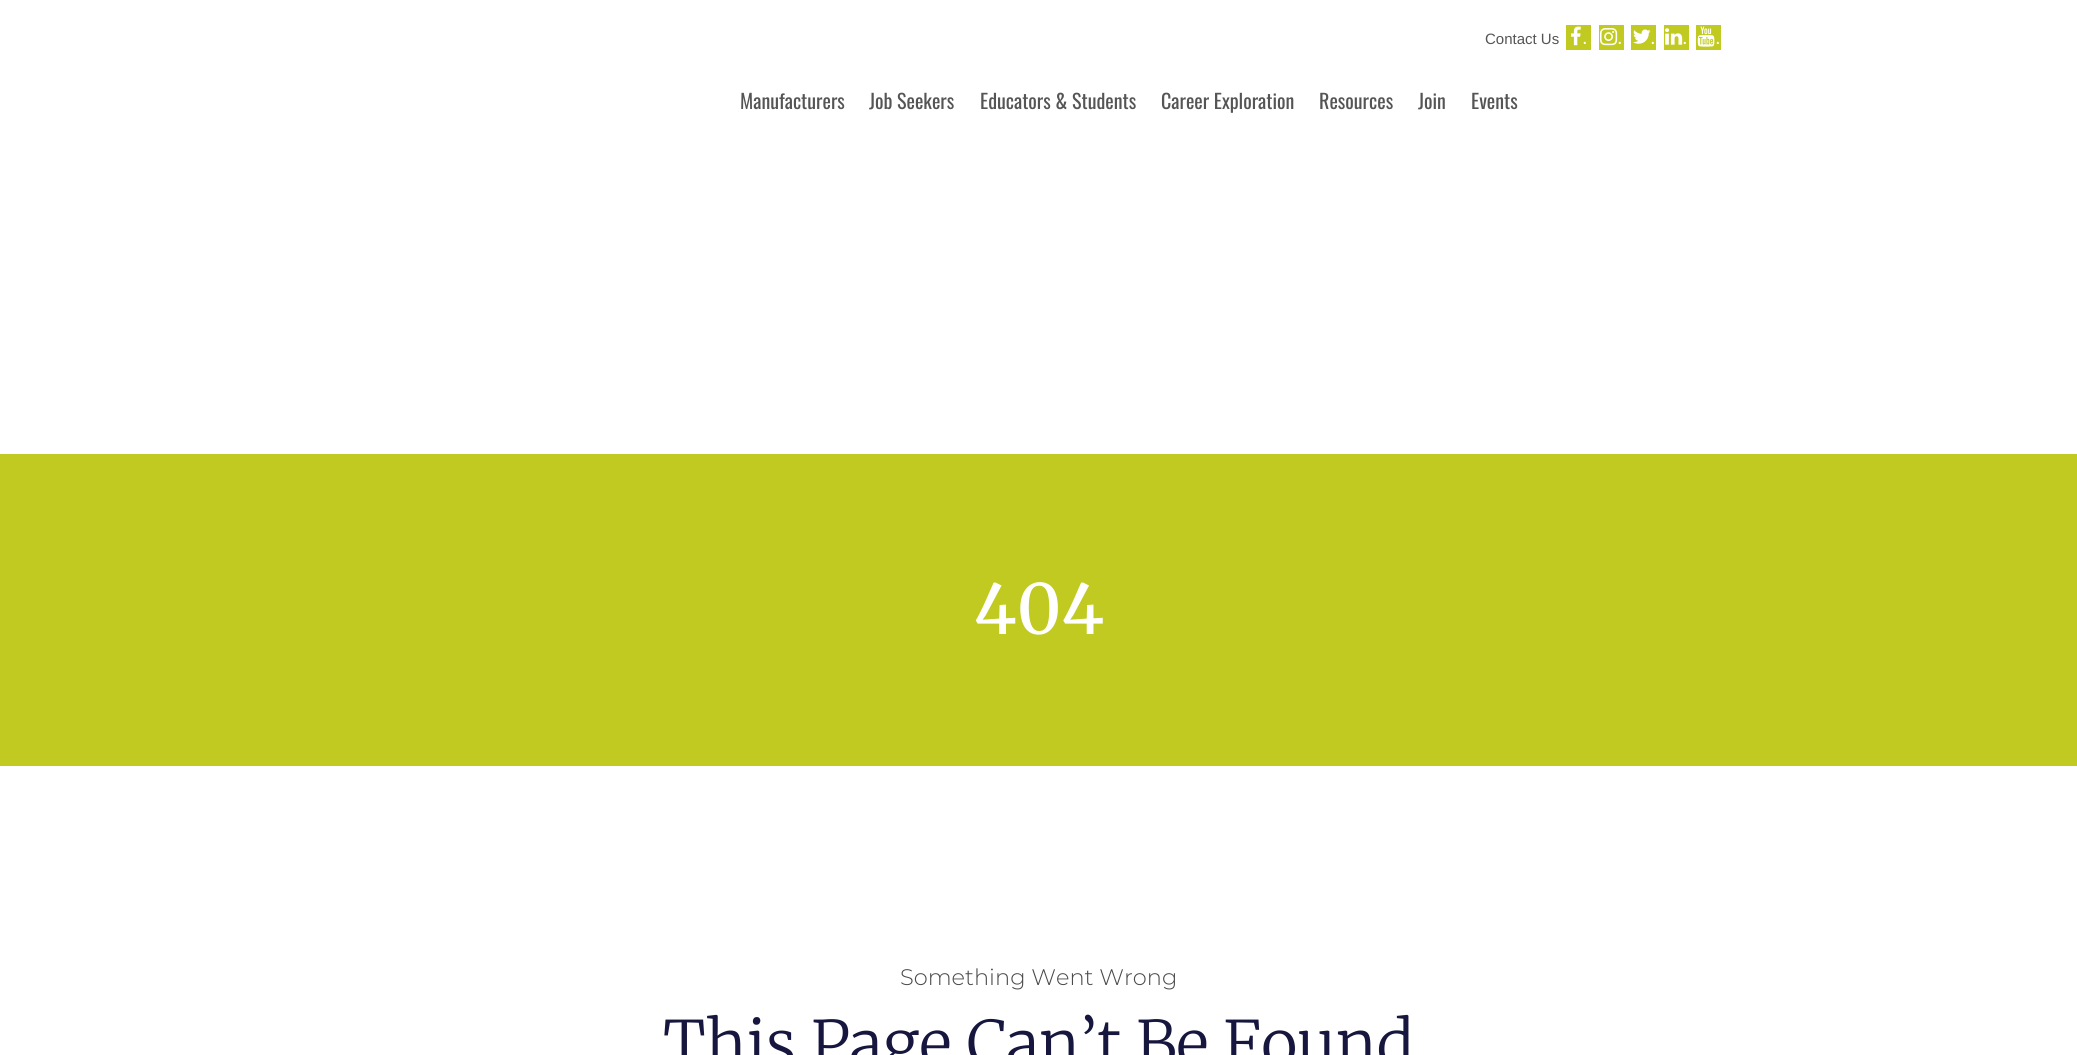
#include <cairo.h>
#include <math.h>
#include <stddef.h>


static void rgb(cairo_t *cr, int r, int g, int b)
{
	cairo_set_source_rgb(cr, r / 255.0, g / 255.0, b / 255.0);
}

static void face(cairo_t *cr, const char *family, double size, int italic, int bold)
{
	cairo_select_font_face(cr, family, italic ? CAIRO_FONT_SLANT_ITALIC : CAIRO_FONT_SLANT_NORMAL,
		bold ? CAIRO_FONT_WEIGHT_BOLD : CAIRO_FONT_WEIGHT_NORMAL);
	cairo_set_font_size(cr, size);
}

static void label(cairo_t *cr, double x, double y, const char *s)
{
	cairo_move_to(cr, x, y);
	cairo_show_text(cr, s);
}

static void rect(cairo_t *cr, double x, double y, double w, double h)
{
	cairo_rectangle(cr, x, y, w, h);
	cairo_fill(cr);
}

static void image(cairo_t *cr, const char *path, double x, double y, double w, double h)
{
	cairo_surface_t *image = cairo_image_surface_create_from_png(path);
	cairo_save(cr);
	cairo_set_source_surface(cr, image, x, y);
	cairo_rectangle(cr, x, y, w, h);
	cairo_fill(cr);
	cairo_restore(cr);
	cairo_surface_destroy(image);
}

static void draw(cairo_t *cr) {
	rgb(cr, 255, 255, 255);
	cairo_paint(cr);
	face(cr, "Liberation Sans", 15, 0, 0);
	rgb(cr, 85, 85, 85);
	label(cr, 1485, 44, "Contact Us");
	rgb(cr, 193, 202, 32);
	rect(cr, 1566, 25, 25, 25);
	image(cr, "image0.png", 1571, 26, 10, 20);
	face(cr, "Liberation Sans", 20, 0, 0);
	rgb(cr, 255, 255, 255);
	label(cr, 1582, 44, ".");
	rgb(cr, 193, 202, 32);
	rect(cr, 1599, 25, 25, 25);
	image(cr, "image1.png", 1600, 28, 18, 18);
	rgb(cr, 255, 255, 255);
	label(cr, 1617, 44, ".");
	rgb(cr, 193, 202, 32);
	rect(cr, 1631, 25, 25, 25);
	image(cr, "image2.png", 1633, 29, 18, 15);
	rgb(cr, 255, 255, 255);
	label(cr, 1650, 44, ".");
	rgb(cr, 193, 202, 32);
	rect(cr, 1664, 25, 25, 25);
	image(cr, "image3.png", 1665, 28, 18, 17);
	rgb(cr, 255, 255, 255);
	label(cr, 1682, 44, ".");
	rgb(cr, 193, 202, 32);
	rect(cr, 1696, 25, 25, 25);
	image(cr, "image4.png", 1697, 26, 18, 21);
	rgb(cr, 255, 255, 255);
	label(cr, 1715, 44, ".");
	face(cr, "Oswald", 20, 0, 0);
	rgb(cr, 85, 85, 85);
	label(cr, 740, 109, "Manufacturers");
	label(cr, 869, 109, "Job Seekers");
	label(cr, 980, 109, "Educators & Students");
	label(cr, 1161, 109, "Career Exploration");
	label(cr, 1319, 109, "Resources");
	label(cr, 1418, 109, "Join");
	label(cr, 1471, 109, "Events");
	rgb(cr, 193, 202, 32);
	rect(cr, 0, 454, 2077, 312);
	face(cr, "Merriweather Medium", 69, 0, 0);
	rgb(cr, 255, 255, 255);
	label(cr, 974, 634, "404");
	face(cr, "Montserrat Light", 22.5, 0, 0);
	rgb(cr, 74, 74, 74);
	label(cr, 900, 985, "Something Went Wrong");
	face(cr, "Merriweather Light", 62.5, 0, 0);
	rgb(cr, 22, 22, 63);
	label(cr, 663, 1066, "This Page Can’t Be Found");
}

int main(void) {
	cairo_surface_t *surface = cairo_image_surface_create(CAIRO_FORMAT_RGB24, 2077, 1055);
	cairo_t *cr = cairo_create(surface);
	cairo_font_options_t *options = cairo_font_options_create();
	cairo_font_options_set_hint_metrics(options, CAIRO_HINT_METRICS_OFF);
	cairo_font_options_set_hint_style(options, CAIRO_HINT_STYLE_NONE);
	cairo_set_font_options(cr, options);
	cairo_set_miter_limit(cr, 4);
	draw(cr);
	cairo_surface_write_to_png(surface, "render.png");
	cairo_font_options_destroy(options);
	cairo_destroy(cr);
	cairo_surface_destroy(surface);
	return 0;
}
